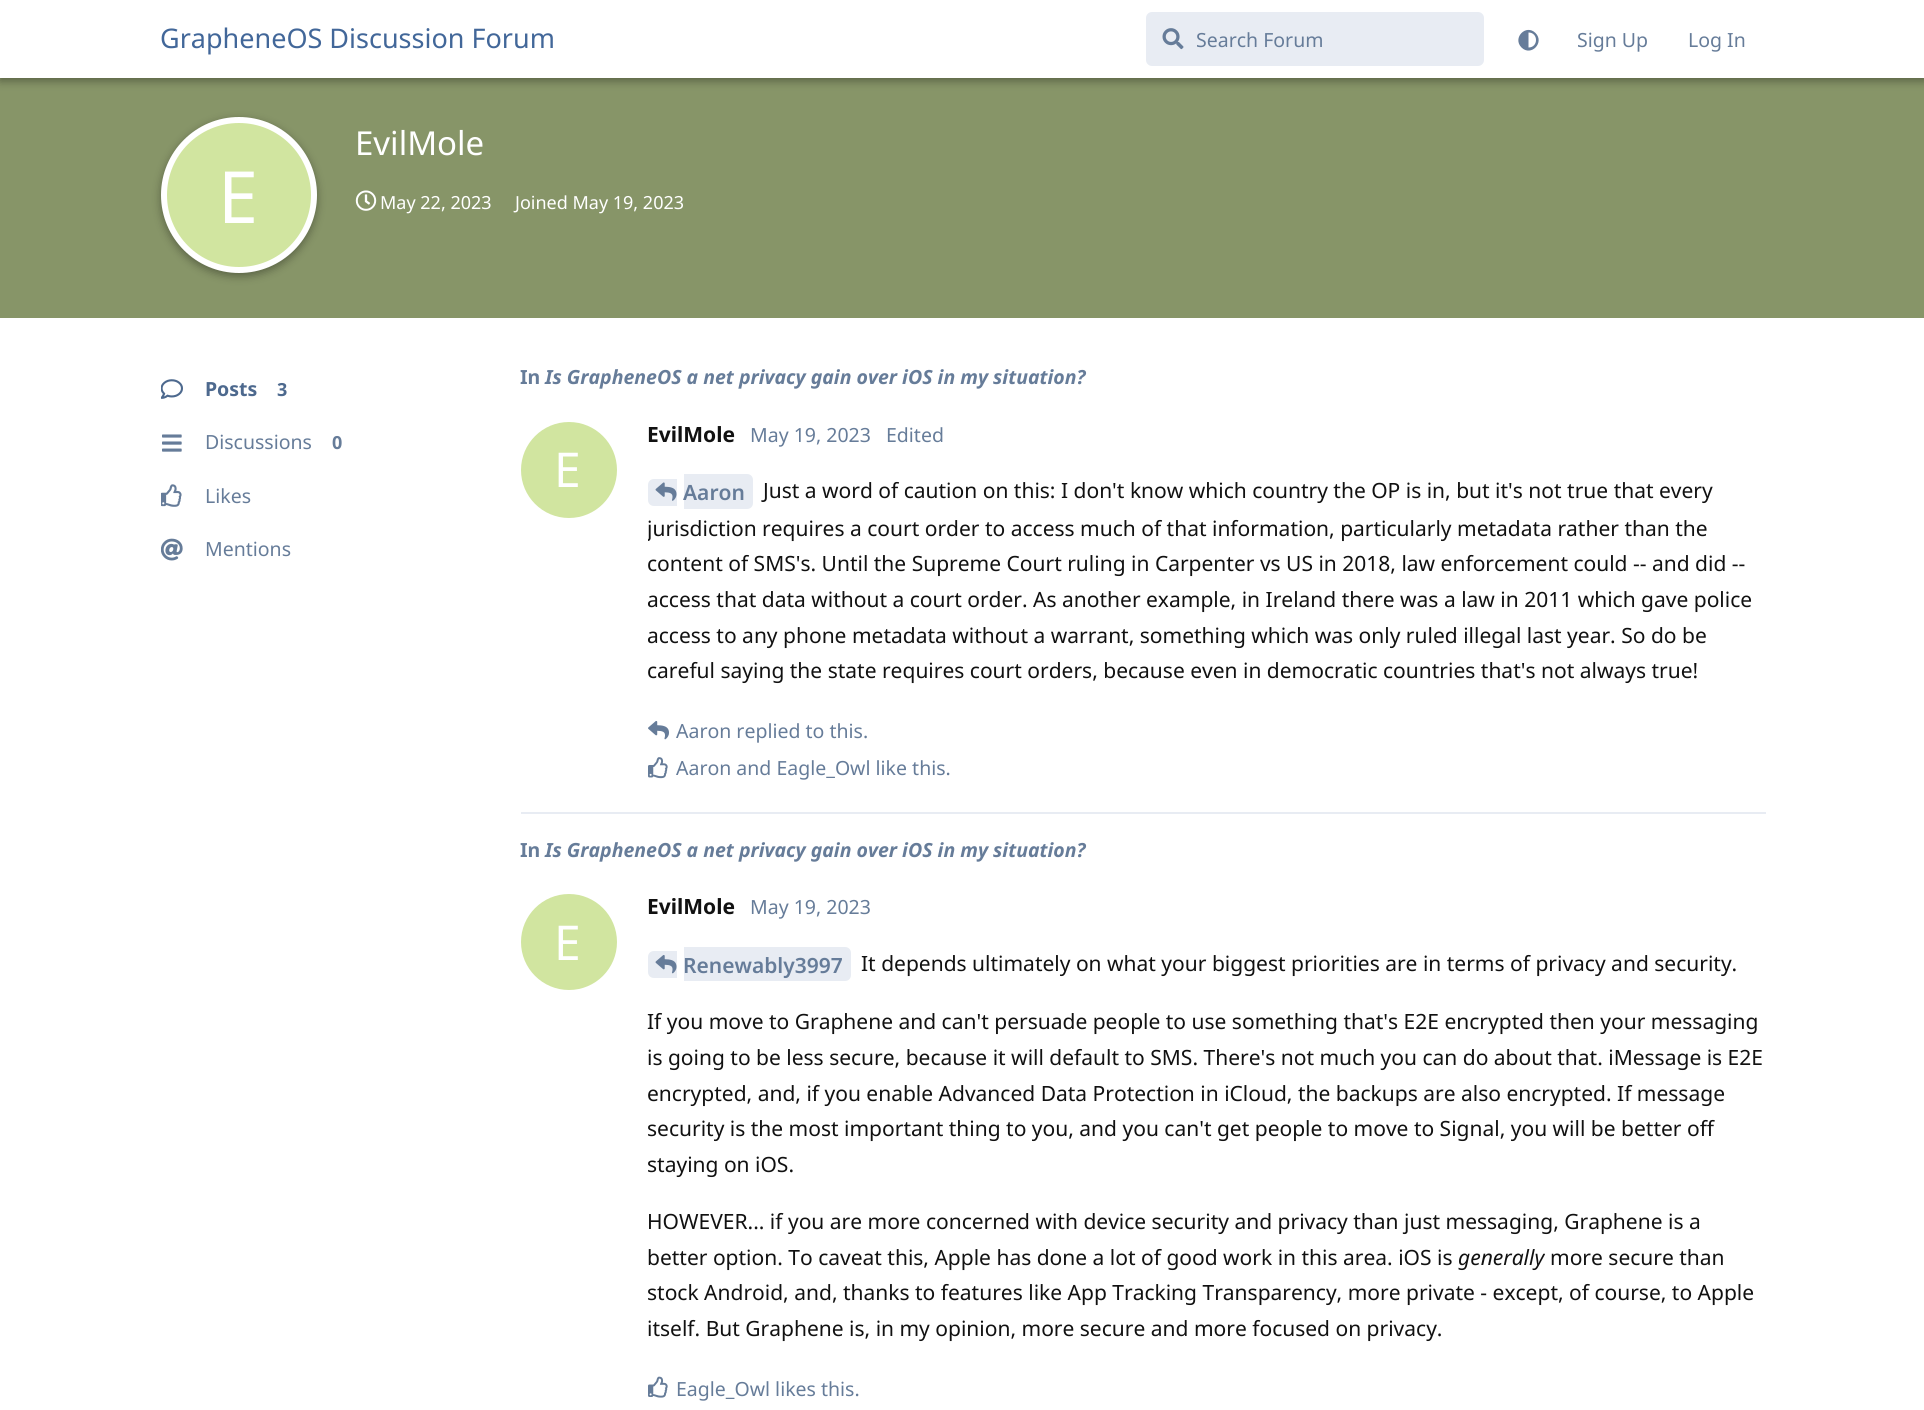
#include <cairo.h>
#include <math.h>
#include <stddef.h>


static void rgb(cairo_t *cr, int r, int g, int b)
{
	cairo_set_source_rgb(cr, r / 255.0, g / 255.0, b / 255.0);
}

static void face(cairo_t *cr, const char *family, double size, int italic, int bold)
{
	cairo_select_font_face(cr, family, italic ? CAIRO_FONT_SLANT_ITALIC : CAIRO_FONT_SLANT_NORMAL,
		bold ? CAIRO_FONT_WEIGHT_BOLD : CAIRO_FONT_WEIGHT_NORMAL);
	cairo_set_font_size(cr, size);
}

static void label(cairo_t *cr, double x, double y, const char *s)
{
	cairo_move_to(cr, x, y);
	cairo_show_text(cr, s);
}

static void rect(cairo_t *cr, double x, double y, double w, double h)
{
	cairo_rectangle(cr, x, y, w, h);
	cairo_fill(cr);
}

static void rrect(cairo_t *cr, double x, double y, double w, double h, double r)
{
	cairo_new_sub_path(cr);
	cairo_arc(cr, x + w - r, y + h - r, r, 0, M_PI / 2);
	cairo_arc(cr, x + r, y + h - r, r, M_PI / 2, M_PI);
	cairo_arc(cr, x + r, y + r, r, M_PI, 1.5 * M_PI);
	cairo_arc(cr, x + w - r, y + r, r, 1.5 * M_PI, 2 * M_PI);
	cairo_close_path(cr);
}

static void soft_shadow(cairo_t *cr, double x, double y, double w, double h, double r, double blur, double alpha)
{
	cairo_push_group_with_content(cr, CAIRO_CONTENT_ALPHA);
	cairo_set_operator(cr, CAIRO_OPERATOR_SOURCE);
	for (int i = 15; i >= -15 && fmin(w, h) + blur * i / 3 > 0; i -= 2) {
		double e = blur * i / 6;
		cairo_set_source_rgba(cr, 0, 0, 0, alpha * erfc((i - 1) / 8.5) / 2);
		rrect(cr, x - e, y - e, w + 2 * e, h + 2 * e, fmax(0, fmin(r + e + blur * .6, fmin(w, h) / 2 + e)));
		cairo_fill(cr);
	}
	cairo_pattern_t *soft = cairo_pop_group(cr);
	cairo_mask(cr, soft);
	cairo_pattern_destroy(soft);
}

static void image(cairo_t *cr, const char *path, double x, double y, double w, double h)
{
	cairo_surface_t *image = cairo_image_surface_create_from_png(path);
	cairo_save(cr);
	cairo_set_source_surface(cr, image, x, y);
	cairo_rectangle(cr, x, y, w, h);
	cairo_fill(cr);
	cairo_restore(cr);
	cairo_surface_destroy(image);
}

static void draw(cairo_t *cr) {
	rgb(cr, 255, 255, 255);
	cairo_paint(cr);
	rgb(cr, 135, 149, 104);
	rect(cr, 0, 78, 1924, 240);
	rgb(cr, 0, 0, 0);
	soft_shadow(cr, 0, 3, 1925, 78, 0, 4.5, 0.35);
	rgb(cr, 255, 255, 255);
	rect(cr, 0, 0, 1924, 78);
	face(cr, "Noto Sans", 27, 0, 0);
	rgb(cr, 66, 103, 153);
	label(cr, 160, 48, "GrapheneOS Discussion Forum");
	rgb(cr, 232, 236, 243);
	rrect(cr, 1146, 12, 338, 54, 6);
	cairo_fill(cr);
	image(cr, "image0.png", 1162, 28, 22, 22);
	face(cr, "Noto Sans", 19.5, 0, 0);
	rgb(cr, 102, 124, 153);
	label(cr, 1196, 47, "Search Forum");
	cairo_new_path(cr);
	cairo_move_to(cr, 1521.5, 47.5);
	cairo_curve_to(cr, 1512, 38, 1526, 23.5, 1535.5, 33);
	cairo_curve_to(cr, 1545, 42.5, 1531, 57, 1521.5, 47.5);
	cairo_close_path(cr);
	cairo_move_to(cr, 1528.5, 47.5);
	cairo_curve_to(cr, 1538.5, 47.5, 1538.5, 32.5, 1528.5, 32.5);
	cairo_close_path(cr);
	cairo_fill(cr);
	label(cr, 1577, 47, "Sign Up");
	label(cr, 1688, 47, "Log In");
	face(cr, "Noto Sans", 33, 0, 0);
	rgb(cr, 255, 255, 255);
	label(cr, 355, 155, "EvilMole");
	rgb(cr, 0, 0, 0);
	soft_shadow(cr, 161, 120, 156, 156, 78, 4.5, 0.35);
	rgb(cr, 209, 229, 160);
	cairo_arc(cr, 239, 195, 75, 0, 2 * M_PI);
	cairo_fill_preserve(cr);
	rgb(cr, 255, 255, 255);
	cairo_set_line_width(cr, 6);
	cairo_stroke(cr);
	face(cr, "Noto Sans", 72, 0, 0);
	label(cr, 218, 223, "E");
	image(cr, "image1.png", 355, 190, 22, 21);
	face(cr, "Noto Sans", 18, 0, 0);
	label(cr, 380, 209, "May 22, 2023");
	label(cr, 515, 209, "Joined May 19, 2023");
	image(cr, "image2.png", 161, 379, 22, 20);
	face(cr, "Noto Sans", 19.5, 0, 1);
	rgb(cr, 77, 105, 142);
	label(cr, 205, 396, "Posts");
	face(cr, "Noto Sans", 18, 0, 1);
	label(cr, 277, 396, "3");
	image(cr, "image3.png", 162, 434, 20, 18);
	face(cr, "Noto Sans", 19.5, 0, 0);
	rgb(cr, 102, 124, 153);
	label(cr, 205, 449, "Discussions");
	face(cr, "Noto Sans", 18, 0, 1);
	label(cr, 332, 449, "0");
	image(cr, "image4.png", 161, 484, 21, 23);
	face(cr, "Noto Sans", 19.5, 0, 0);
	label(cr, 205, 503, "Likes");
	image(cr, "image5.png", 161, 538, 22, 23);
	label(cr, 205, 556, "Mentions");
	rgb(cr, 232, 236, 243);
	rect(cr, 521, 812, 1245, 2);
	face(cr, "Noto Sans", 19.5, 0, 1);
	rgb(cr, 102, 124, 153);
	label(cr, 520, 384, "In");
	face(cr, "Noto Sans", 19.5, 1, 1);
	label(cr, 545, 384, "Is GrapheneOS a net privacy gain over iOS in my situation?");
	face(cr, "Noto Sans", 21, 0, 1);
	rgb(cr, 17, 17, 17);
	label(cr, 647, 442, "EvilMole");
	rgb(cr, 209, 229, 160);
	cairo_new_path(cr);
	cairo_arc(cr, 569, 470, 48, 0, 2 * M_PI);
	cairo_fill(cr);
	face(cr, "Noto Sans", 48, 0, 0);
	rgb(cr, 255, 255, 255);
	label(cr, 554, 487, "E");
	face(cr, "Noto Sans", 19.5, 0, 0);
	rgb(cr, 102, 124, 153);
	label(cr, 750, 442, "May 19, 2023");
	label(cr, 886, 442, "Edited");
	rgb(cr, 232, 236, 243);
	cairo_new_path(cr);
	cairo_move_to(cr, 654, 479);
	cairo_line_to(cr, 677, 479);
	cairo_line_to(cr, 677, 506);
	cairo_line_to(cr, 654, 506);
	cairo_curve_to(cr, 650.5, 506, 648, 503.5, 648, 500);
	cairo_line_to(cr, 648, 485);
	cairo_curve_to(cr, 648, 481.5, 650.5, 479, 654, 479);
	cairo_close_path(cr);
	cairo_fill(cr);
	cairo_new_path(cr);
	cairo_move_to(cr, 684, 474);
	cairo_line_to(cr, 747, 474);
	cairo_curve_to(cr, 750.5, 474, 753, 476.5, 753, 480);
	cairo_line_to(cr, 753, 503);
	cairo_curve_to(cr, 753, 506.5, 750.5, 509, 747, 509);
	cairo_line_to(cr, 684, 509);
	cairo_close_path(cr);
	cairo_fill(cr);
	image(cr, "image6.png", 655, 482, 22, 19);
	face(cr, "Noto Sans SemiBold", 21, 0, 0);
	rgb(cr, 102, 124, 153);
	label(cr, 683, 500, "Aaron");
	face(cr, "Noto Sans", 21, 0, 0);
	rgb(cr, 17, 17, 17);
	label(cr, 763, 498, "Just a word of caution on this: I don't know which country the OP is in, but it's not true that every");
	cairo_save(cr);
	cairo_rectangle(cr, 648, 473, 1118, 237);
	cairo_clip(cr);
	label(cr, 647, 536, "jurisdiction requires a court order to access much of that information, particularly metadata rather than the");
	cairo_restore(cr);
	label(cr, 647, 571, "content of SMS's. Until the Supreme Court ruling in Carpenter vs US in 2018, law enforcement could -- and did --");
	label(cr, 647, 607, "access that data without a court order. As another example, in Ireland there was a law in 2011 which gave police");
	label(cr, 647, 643, "access to any phone metadata without a warrant, something which was only ruled illegal last year. So do be");
	label(cr, 647, 678, "careful saying the state requires court orders, because even in democratic countries that's not always true!");
	image(cr, "image7.png", 648, 721, 21, 19);
	face(cr, "Noto Sans", 19.5, 0, 0);
	rgb(cr, 102, 124, 153);
	label(cr, 676, 738, "Aaron replied to this.");
	image(cr, "image8.png", 648, 757, 20, 22);
	label(cr, 676, 775, "Aaron and Eagle_Owl like this.");
	face(cr, "Noto Sans", 19.5, 0, 1);
	label(cr, 520, 857, "In");
	face(cr, "Noto Sans", 19.5, 1, 1);
	label(cr, 545, 857, "Is GrapheneOS a net privacy gain over iOS in my situation?");
	face(cr, "Noto Sans", 21, 0, 1);
	rgb(cr, 17, 17, 17);
	label(cr, 647, 914, "EvilMole");
	rgb(cr, 209, 229, 160);
	cairo_new_path(cr);
	cairo_arc(cr, 569, 942, 48, 0, 2 * M_PI);
	cairo_fill(cr);
	face(cr, "Noto Sans", 48, 0, 0);
	rgb(cr, 255, 255, 255);
	label(cr, 554, 960, "E");
	face(cr, "Noto Sans", 19.5, 0, 0);
	rgb(cr, 102, 124, 153);
	label(cr, 750, 914, "May 19, 2023");
	rgb(cr, 232, 236, 243);
	cairo_new_path(cr);
	cairo_move_to(cr, 654, 951);
	cairo_line_to(cr, 677, 951);
	cairo_line_to(cr, 677, 978);
	cairo_line_to(cr, 654, 978);
	cairo_curve_to(cr, 650.5, 978, 648, 975.5, 648, 972);
	cairo_line_to(cr, 648, 957);
	cairo_curve_to(cr, 648, 953.5, 650.5, 951, 654, 951);
	cairo_close_path(cr);
	cairo_fill(cr);
	cairo_new_path(cr);
	cairo_move_to(cr, 684, 947);
	cairo_line_to(cr, 845, 947);
	cairo_curve_to(cr, 848.5, 947, 851, 949.5, 851, 953);
	cairo_line_to(cr, 851, 975);
	cairo_curve_to(cr, 851, 978.5, 848.5, 981, 845, 981);
	cairo_line_to(cr, 684, 981);
	cairo_close_path(cr);
	cairo_fill(cr);
	image(cr, "image9.png", 655, 955, 22, 19);
	face(cr, "Noto Sans SemiBold", 21, 0, 0);
	rgb(cr, 102, 124, 153);
	label(cr, 683, 973, "Renewably3997");
	face(cr, "Noto Sans", 21, 0, 0);
	rgb(cr, 17, 17, 17);
	label(cr, 861, 971, "It depends ultimately on what your biggest priorities are in terms of privacy and security.");
	label(cr, 647, 1029, "If you move to Graphene and can't persuade people to use something that's E2E encrypted then your messaging");
	label(cr, 647, 1065, "is going to be less secure, because it will default to SMS. There's not much you can do about that. iMessage is E2E");
	label(cr, 647, 1101, "encrypted, and, if you enable Advanced Data Protection in iCloud, the backups are also encrypted. If message");
	label(cr, 647, 1136, "security is the most important thing to you, and you can't get people to move to Signal, you will be better off");
	label(cr, 647, 1172, "staying on iOS.");
	label(cr, 647, 1229, "HOWEVER... if you are more concerned with device security and privacy than just messaging, Graphene is a");
	label(cr, 647, 1265, "better option. To caveat this, Apple has done a lot of good work in this area. iOS is");
	face(cr, "Noto Sans", 21, 1, 0);
	label(cr, 1458, 1265, "generally");
	face(cr, "Noto Sans", 21, 0, 0);
	label(cr, 1550, 1265, "more secure than");
	label(cr, 647, 1300, "stock Android, and, thanks to features like App Tracking Transparency, more private - except, of course, to Apple");
	label(cr, 647, 1336, "itself. But Graphene is, in my opinion, more secure and more focused on privacy.");
	image(cr, "image10.png", 648, 1376, 20, 22);
	face(cr, "Noto Sans", 19.5, 0, 0);
	rgb(cr, 102, 124, 153);
	label(cr, 676, 1396, "Eagle_Owl likes this.");
}

int main(void) {
	cairo_surface_t *surface = cairo_image_surface_create(CAIRO_FORMAT_RGB24, 1924, 1410);
	cairo_t *cr = cairo_create(surface);
	cairo_font_options_t *options = cairo_font_options_create();
	cairo_font_options_set_hint_metrics(options, CAIRO_HINT_METRICS_OFF);
	cairo_font_options_set_hint_style(options, CAIRO_HINT_STYLE_NONE);
	cairo_set_font_options(cr, options);
	cairo_set_miter_limit(cr, 4);
	draw(cr);
	cairo_surface_write_to_png(surface, "render.png");
	cairo_font_options_destroy(options);
	cairo_destroy(cr);
	cairo_surface_destroy(surface);
	return 0;
}
